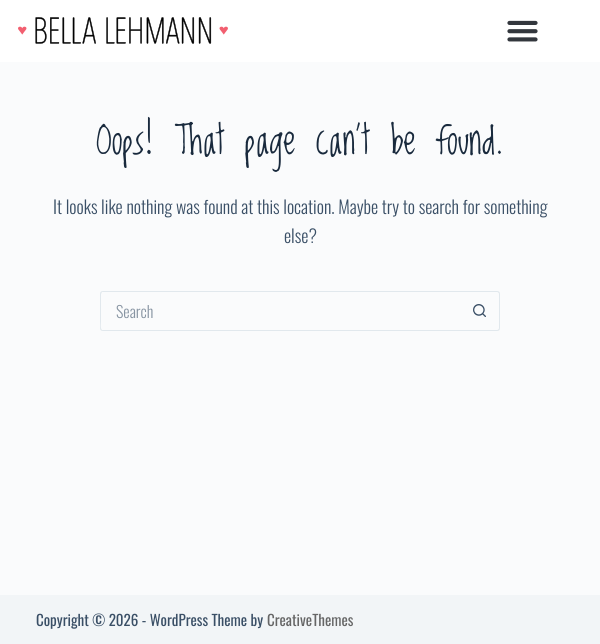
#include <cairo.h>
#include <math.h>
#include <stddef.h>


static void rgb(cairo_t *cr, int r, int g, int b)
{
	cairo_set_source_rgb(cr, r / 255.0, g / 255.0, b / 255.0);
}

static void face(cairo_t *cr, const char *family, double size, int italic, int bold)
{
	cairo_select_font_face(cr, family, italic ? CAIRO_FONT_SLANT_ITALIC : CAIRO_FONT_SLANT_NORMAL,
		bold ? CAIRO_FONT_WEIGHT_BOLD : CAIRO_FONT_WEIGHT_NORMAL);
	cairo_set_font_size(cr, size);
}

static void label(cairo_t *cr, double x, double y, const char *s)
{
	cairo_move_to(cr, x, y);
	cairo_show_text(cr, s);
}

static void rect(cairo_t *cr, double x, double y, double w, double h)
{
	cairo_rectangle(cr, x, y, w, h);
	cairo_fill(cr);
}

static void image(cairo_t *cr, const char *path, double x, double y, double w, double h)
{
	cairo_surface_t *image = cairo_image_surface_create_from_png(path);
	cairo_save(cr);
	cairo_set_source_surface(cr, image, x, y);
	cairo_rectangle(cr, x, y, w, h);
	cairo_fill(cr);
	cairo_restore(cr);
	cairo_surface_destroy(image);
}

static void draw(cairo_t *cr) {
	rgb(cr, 250, 251, 252);
	cairo_paint(cr);
	rgb(cr, 255, 255, 255);
	rect(cr, 0, 0, 600, 62);
	image(cr, "image0.png", 18, 17, 210, 27);
	image(cr, "image1.png", 507, 20, 31, 22);
	face(cr, "Loved by the King", 40, 0, 0);
	rgb(cr, 25, 42, 61);
	label(cr, 96, 154, "Oops! That page can’t be found.");
	face(cr, "Oswald Light", 18, 0, 0);
	rgb(cr, 58, 79, 102);
	label(cr, 53, 214, "It looks like nothing was found at this location. Maybe try to search for something");
	label(cr, 284, 243, "else?");
	rgb(cr, 225, 232, 237);
	cairo_set_fill_rule(cr, CAIRO_FILL_RULE_EVEN_ODD);
	cairo_new_path(cr);
	cairo_move_to(cr, 103, 291);
	cairo_line_to(cr, 460, 291);
	cairo_line_to(cr, 460, 331);
	cairo_line_to(cr, 103, 331);
	cairo_curve_to(cr, 101, 331, 100, 330, 100, 328);
	cairo_line_to(cr, 100, 294);
	cairo_curve_to(cr, 100, 292, 101, 291, 103, 291);
	cairo_close_path(cr);
	cairo_move_to(cr, 103, 292);
	cairo_line_to(cr, 460, 292);
	cairo_line_to(cr, 460, 330);
	cairo_line_to(cr, 102, 330);
	cairo_curve_to(cr, 100, 328, 101, 323, 101, 322);
	cairo_line_to(cr, 101, 294);
	cairo_line_to(cr, 102, 292);
	cairo_close_path(cr);
	cairo_fill(cr);
	face(cr, "Oswald Light", 16, 0, 0);
	rgb(cr, 135, 148, 162);
	label(cr, 116, 318, "Search");
	rgb(cr, 225, 232, 237);
	cairo_new_path(cr);
	cairo_move_to(cr, 460, 291);
	cairo_line_to(cr, 497, 291);
	cairo_curve_to(cr, 499, 291, 500, 292, 500, 294);
	cairo_line_to(cr, 500, 328);
	cairo_curve_to(cr, 500, 330, 499, 331, 497, 331);
	cairo_line_to(cr, 460, 331);
	cairo_close_path(cr);
	cairo_move_to(cr, 460, 292);
	cairo_line_to(cr, 497, 292);
	cairo_curve_to(cr, 498, 292, 499, 293, 499, 294);
	cairo_line_to(cr, 499, 328);
	cairo_curve_to(cr, 499, 329, 498, 330, 497, 330);
	cairo_line_to(cr, 460, 330);
	cairo_close_path(cr);
	cairo_fill(cr);
	image(cr, "image2.png", 473, 304, 13, 13);
	cairo_new_path(cr);
	cairo_move_to(cr, 481.5, 318.5);
	cairo_curve_to(cr, 477, 319, 473.5, 316.5, 472.5, 312.5);
	rgb(cr, 250, 251, 252);
	cairo_set_line_width(cr, 1.5);
	cairo_set_line_cap(cr, CAIRO_LINE_CAP_ROUND);
	cairo_stroke(cr);
	rgb(cr, 242, 245, 247);
	rect(cr, 0, 595, 600, 49);
	face(cr, "Oswald", 15, 0, 0);
	rgb(cr, 58, 79, 102);
	label(cr, 36, 626, "Copyright © 2026 - WordPress Theme by");
	rgb(cr, 102, 102, 102);
	label(cr, 267, 626, "CreativeThemes");
}

int main(void) {
	cairo_surface_t *surface = cairo_image_surface_create(CAIRO_FORMAT_RGB24, 600, 644);
	cairo_t *cr = cairo_create(surface);
	cairo_font_options_t *options = cairo_font_options_create();
	cairo_font_options_set_hint_metrics(options, CAIRO_HINT_METRICS_OFF);
	cairo_font_options_set_hint_style(options, CAIRO_HINT_STYLE_NONE);
	cairo_set_font_options(cr, options);
	cairo_set_miter_limit(cr, 4);
	draw(cr);
	cairo_surface_write_to_png(surface, "render.png");
	cairo_font_options_destroy(options);
	cairo_destroy(cr);
	cairo_surface_destroy(surface);
	return 0;
}
